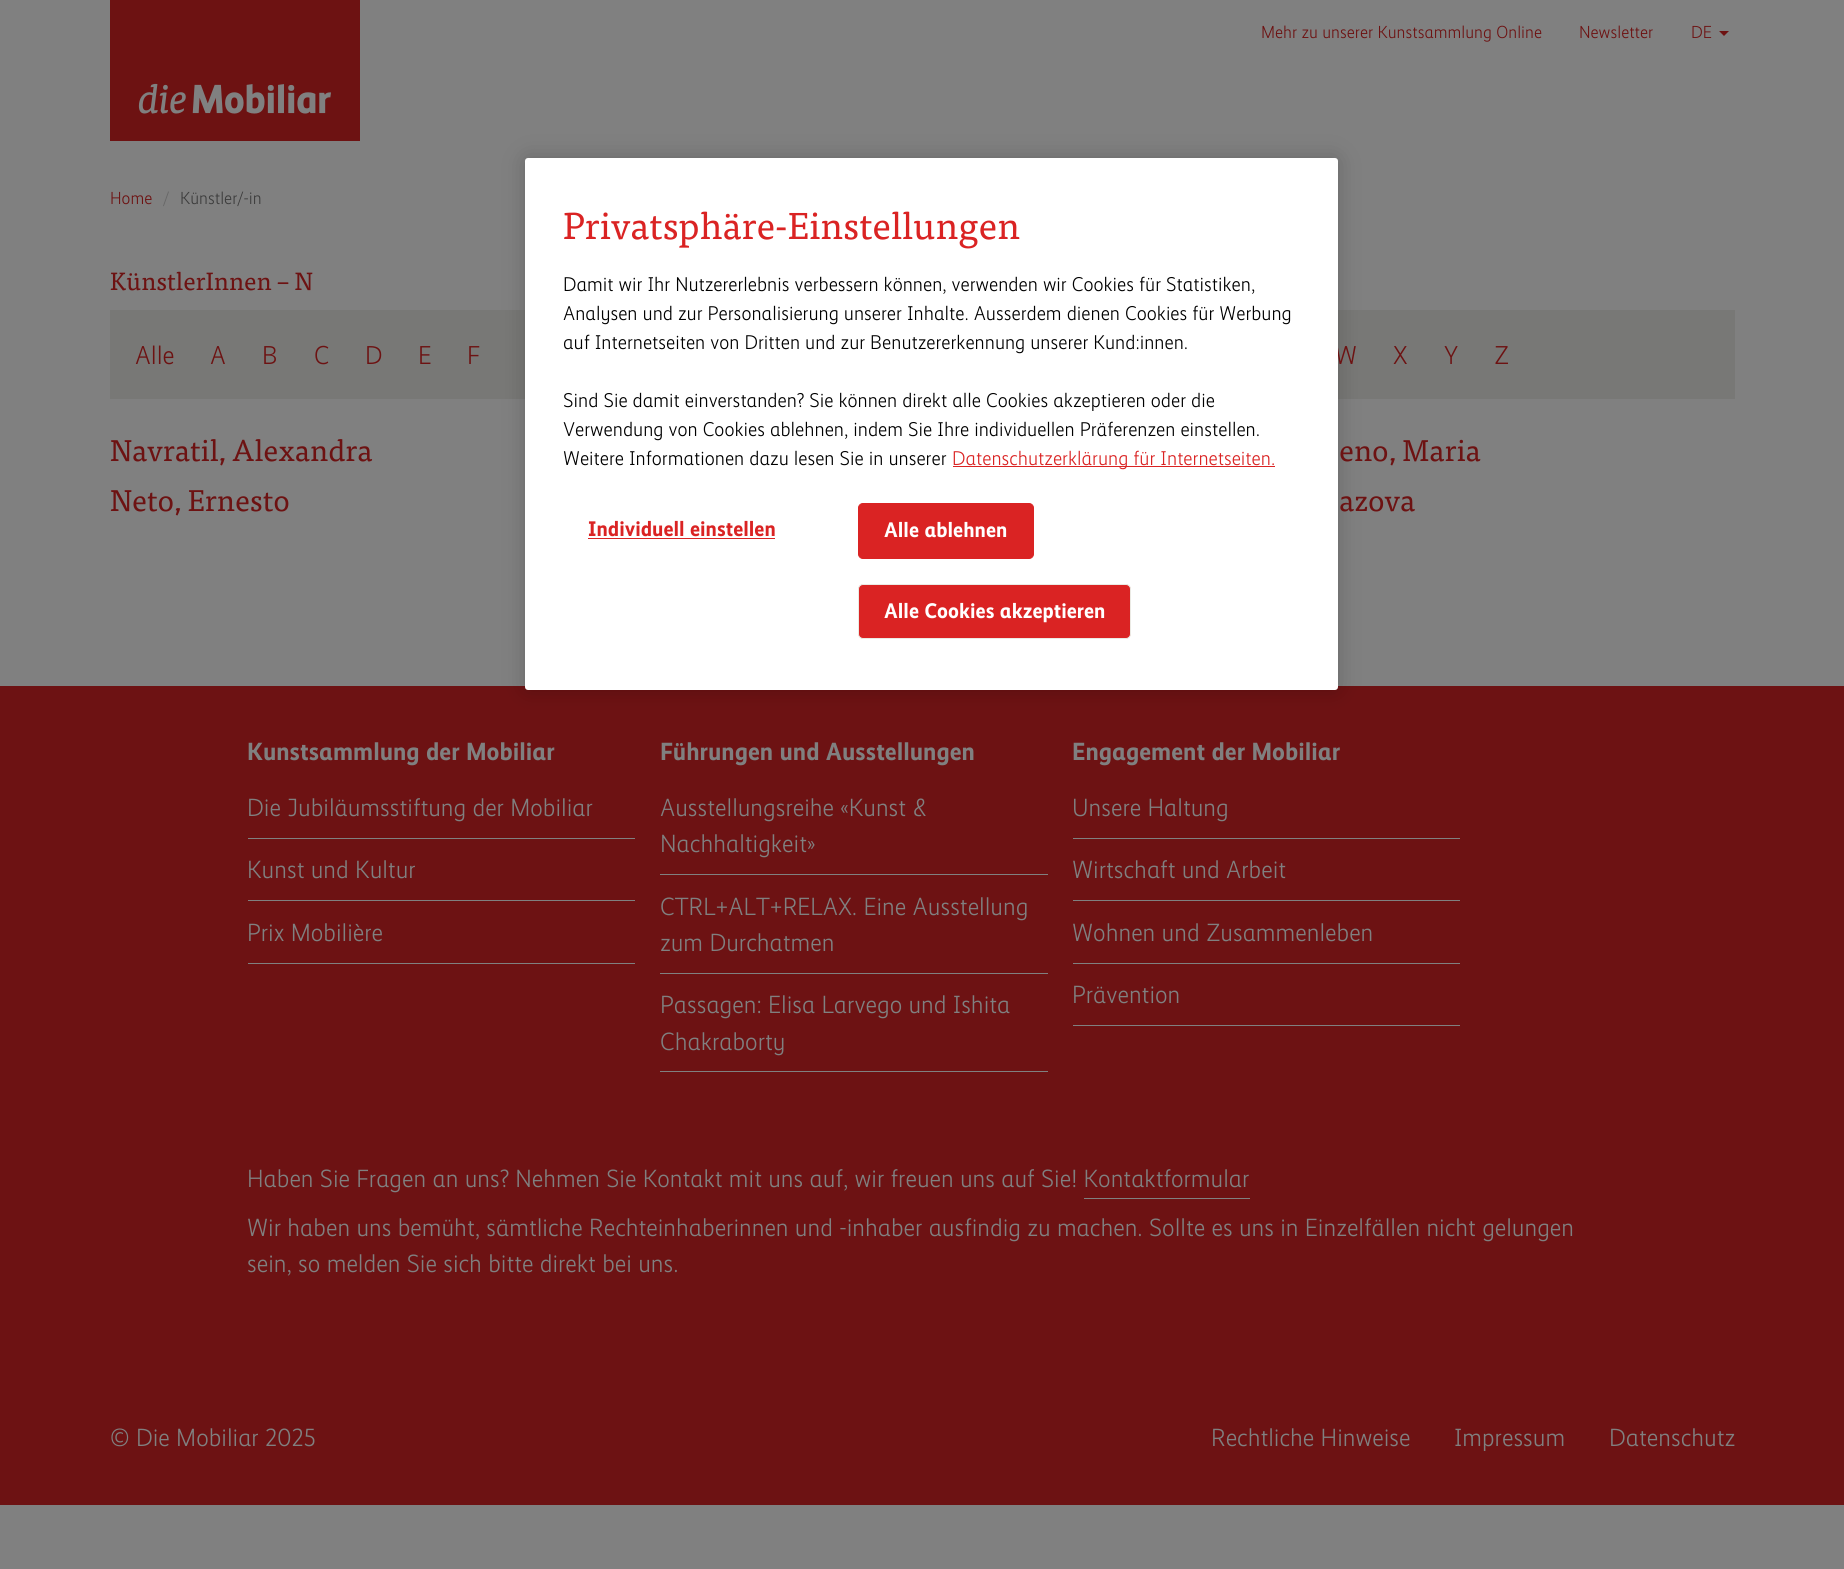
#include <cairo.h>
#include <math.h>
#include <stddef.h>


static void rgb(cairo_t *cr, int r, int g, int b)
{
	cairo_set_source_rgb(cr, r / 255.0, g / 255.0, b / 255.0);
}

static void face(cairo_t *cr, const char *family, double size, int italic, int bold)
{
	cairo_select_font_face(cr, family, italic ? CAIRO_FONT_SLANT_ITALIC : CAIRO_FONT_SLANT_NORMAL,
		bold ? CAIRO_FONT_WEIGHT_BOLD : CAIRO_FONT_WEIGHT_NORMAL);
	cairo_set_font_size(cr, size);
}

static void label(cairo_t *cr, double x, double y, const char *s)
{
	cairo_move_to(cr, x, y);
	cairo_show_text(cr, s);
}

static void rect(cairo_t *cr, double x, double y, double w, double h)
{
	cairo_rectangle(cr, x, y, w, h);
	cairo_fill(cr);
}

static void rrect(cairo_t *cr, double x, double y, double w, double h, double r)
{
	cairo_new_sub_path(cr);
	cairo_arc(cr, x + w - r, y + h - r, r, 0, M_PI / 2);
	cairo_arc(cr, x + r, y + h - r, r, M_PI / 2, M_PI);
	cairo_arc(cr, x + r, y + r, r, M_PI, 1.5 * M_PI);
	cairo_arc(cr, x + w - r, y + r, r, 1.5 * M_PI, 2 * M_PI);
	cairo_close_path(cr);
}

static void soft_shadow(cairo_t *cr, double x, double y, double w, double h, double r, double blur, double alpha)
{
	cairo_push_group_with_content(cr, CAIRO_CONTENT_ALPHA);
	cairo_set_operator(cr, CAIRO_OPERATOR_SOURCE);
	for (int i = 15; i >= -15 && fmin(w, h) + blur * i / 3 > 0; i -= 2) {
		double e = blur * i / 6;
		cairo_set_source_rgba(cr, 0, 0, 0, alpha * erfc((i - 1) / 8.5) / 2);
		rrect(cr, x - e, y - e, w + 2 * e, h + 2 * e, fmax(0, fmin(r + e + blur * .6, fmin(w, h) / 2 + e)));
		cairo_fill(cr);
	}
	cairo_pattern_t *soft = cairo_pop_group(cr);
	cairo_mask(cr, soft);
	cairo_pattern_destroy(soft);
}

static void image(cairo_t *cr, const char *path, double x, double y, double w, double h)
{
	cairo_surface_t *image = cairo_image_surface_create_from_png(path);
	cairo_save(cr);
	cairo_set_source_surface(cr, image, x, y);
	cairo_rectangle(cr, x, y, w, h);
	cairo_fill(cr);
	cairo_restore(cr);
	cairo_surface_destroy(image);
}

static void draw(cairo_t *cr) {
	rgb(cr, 128, 128, 128);
	cairo_paint(cr);
	image(cr, "image0.png", 110, 0, 250, 141);
	face(cr, "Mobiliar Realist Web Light", 17.5, 0, 0);
	rgb(cr, 109, 18, 18);
	label(cr, 1261, 38, "Mehr zu unserer Kunstsammlung Online");
	label(cr, 1579, 38, "Newsletter");
	label(cr, 1691, 38, "DE");
	cairo_new_path(cr);
	cairo_move_to(cr, 1719, 31);
	cairo_line_to(cr, 1729, 31);
	cairo_line_to(cr, 1724, 36);
	cairo_close_path(cr);
	cairo_fill(cr);
	label(cr, 110, 204, "Home");
	rgb(cr, 102, 102, 102);
	label(cr, 163, 204, "/");
	rgb(cr, 60, 60, 60);
	label(cr, 180, 204, "Künstler/-in");
	rgb(cr, 120, 120, 118);
	rect(cr, 110, 310, 1625, 89);
	rgb(cr, 109, 18, 19);
	rect(cr, 0, 686, 1844, 819);
	rgb(cr, 0, 0, 0);
	soft_shadow(cr, 525, 158, 813, 532, 3, 11, 0.2);
	face(cr, "Mobiliar Realist Web Light", 26, 0, 0);
	rgb(cr, 109, 18, 18);
	label(cr, 1335, 364, "W");
	rgb(cr, 255, 255, 255);
	rrect(cr, 525, 158, 813, 532, 3);
	cairo_fill(cr);
	face(cr, "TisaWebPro", 37.5, 0, 0);
	rgb(cr, 218, 35, 35);
	label(cr, 563, 239, "Privatsphäre-Einstellungen");
	face(cr, "Mobiliar Realist Web Light", 20, 0, 0);
	rgb(cr, 0, 0, 0);
	label(cr, 563, 291, "Damit wir Ihr Nutzererlebnis verbessern können, verwenden wir Cookies für Statistiken,");
	label(cr, 563, 320, "Analysen und zur Personalisierung unserer Inhalte. Ausserdem dienen Cookies für Werbung");
	label(cr, 563, 349, "auf Internetseiten von Dritten und zur Benutzererkennung unserer Kund:innen.");
	label(cr, 563, 407, "Sind Sie damit einverstanden? Sie können direkt alle Cookies akzeptieren oder die");
	label(cr, 563, 436, "Verwendung von Cookies ablehnen, indem Sie Ihre individuellen Präferenzen einstellen.");
	label(cr, 563, 465, "Weitere Informationen dazu lesen Sie in unserer");
	rgb(cr, 218, 35, 35);
	rect(cr, 953, 466, 322, 1);
	label(cr, 952, 465, "Datenschutzerklärung für Internetseiten.");
	face(cr, "Mobiliar Realist Web", 21.25, 0, 1);
	label(cr, 588, 536, "Individuell einstellen");
	rect(cr, 588, 538, 187, 1);
	rrect(cr, 858.5, 503.5, 175, 55, 4.5);
	cairo_fill_preserve(cr);
	cairo_set_line_width(cr, 1);
	cairo_stroke(cr);
	rgb(cr, 255, 255, 255);
	label(cr, 884, 537, "Alle ablehnen");
	rgb(cr, 218, 35, 35);
	rrect(cr, 858.5, 584.5, 272, 54, 4.5);
	cairo_fill_preserve(cr);
	rgb(cr, 235, 234, 228);
	cairo_stroke(cr);
	rgb(cr, 255, 255, 255);
	label(cr, 884, 618, "Alle Cookies akzeptieren");
	face(cr, "TisaWebPro", 25, 0, 0);
	rgb(cr, 109, 18, 18);
	label(cr, 110, 290, "KünstlerInnen – N");
	face(cr, "Mobiliar Realist Web Light", 26, 0, 0);
	label(cr, 135, 364, "Alle");
	label(cr, 210, 364, "A");
	label(cr, 262, 364, "B");
	label(cr, 314, 364, "C");
	label(cr, 365, 364, "D");
	label(cr, 418, 364, "E");
	label(cr, 467, 364, "F");
	label(cr, 1393, 364, "X");
	label(cr, 1444, 364, "Y");
	label(cr, 1494, 364, "Z");
	face(cr, "TisaWebPro", 30, 0, 0);
	label(cr, 110, 461, "Navratil, Alexandra");
	label(cr, 1339, 461, "eno, Maria");
	label(cr, 110, 511, "Neto, Ernesto");
	label(cr, 1339, 511, "azova");
	face(cr, "Mobiliar Realist Web", 25, 0, 1);
	rgb(cr, 128, 128, 128);
	label(cr, 247, 760, "Kunstsammlung der Mobiliar");
	rect(cr, 248, 838, 387, 1);
	face(cr, "Mobiliar Realist Web Light", 25, 0, 0);
	label(cr, 247, 816, "Die Jubiläumsstiftung der Mobiliar");
	rect(cr, 248, 900, 387, 1);
	label(cr, 247, 878, "Kunst und Kultur");
	rect(cr, 248, 963, 387, 1);
	label(cr, 247, 941, "Prix Mobilière");
	face(cr, "Mobiliar Realist Web", 25, 0, 1);
	label(cr, 660, 760, "Führungen und Ausstellungen");
	rect(cr, 660, 874, 388, 1);
	face(cr, "Mobiliar Realist Web Light", 25, 0, 0);
	label(cr, 660, 816, "Ausstellungsreihe «Kunst &");
	label(cr, 660, 852, "Nachhaltigkeit»");
	rect(cr, 660, 973, 388, 1);
	label(cr, 660, 915, "CTRL+ALT+RELAX. Eine Ausstellung");
	label(cr, 660, 951, "zum Durchatmen");
	rect(cr, 660, 1071, 388, 1);
	label(cr, 660, 1013, "Passagen: Elisa Larvego und Ishita");
	label(cr, 660, 1050, "Chakraborty");
	face(cr, "Mobiliar Realist Web", 25, 0, 1);
	label(cr, 1072, 760, "Engagement der Mobiliar");
	rect(cr, 1073, 838, 387, 1);
	face(cr, "Mobiliar Realist Web Light", 25, 0, 0);
	label(cr, 1072, 816, "Unsere Haltung");
	rect(cr, 1073, 900, 387, 1);
	label(cr, 1072, 878, "Wirtschaft und Arbeit");
	rect(cr, 1073, 963, 387, 1);
	label(cr, 1072, 941, "Wohnen und Zusammenleben");
	rect(cr, 1073, 1025, 387, 1);
	label(cr, 1072, 1003, "Prävention");
	label(cr, 247, 1187, "Haben Sie Fragen an uns? Nehmen Sie Kontakt mit uns auf, wir freuen uns auf Sie! Kontaktformular");
	rect(cr, 1084, 1198, 166, 1);
	label(cr, 247, 1236, "Wir haben uns bemüht, sämtliche Rechteinhaberinnen und -inhaber ausfindig zu machen. Sollte es uns in Einzelfällen nicht gelungen");
	label(cr, 247, 1272, "sein, so melden Sie sich bitte direkt bei uns.");
	label(cr, 110, 1446, "© Die Mobiliar 2025");
	label(cr, 1211, 1446, "Rechtliche Hinweise");
	label(cr, 1454, 1446, "Impressum");
	label(cr, 1609, 1446, "Datenschutz");
}

int main(void) {
	cairo_surface_t *surface = cairo_image_surface_create(CAIRO_FORMAT_RGB24, 1844, 1569);
	cairo_t *cr = cairo_create(surface);
	cairo_font_options_t *options = cairo_font_options_create();
	cairo_font_options_set_hint_metrics(options, CAIRO_HINT_METRICS_OFF);
	cairo_font_options_set_hint_style(options, CAIRO_HINT_STYLE_NONE);
	cairo_set_font_options(cr, options);
	cairo_set_miter_limit(cr, 4);
	draw(cr);
	cairo_surface_write_to_png(surface, "render.png");
	cairo_font_options_destroy(options);
	cairo_destroy(cr);
	cairo_surface_destroy(surface);
	return 0;
}
